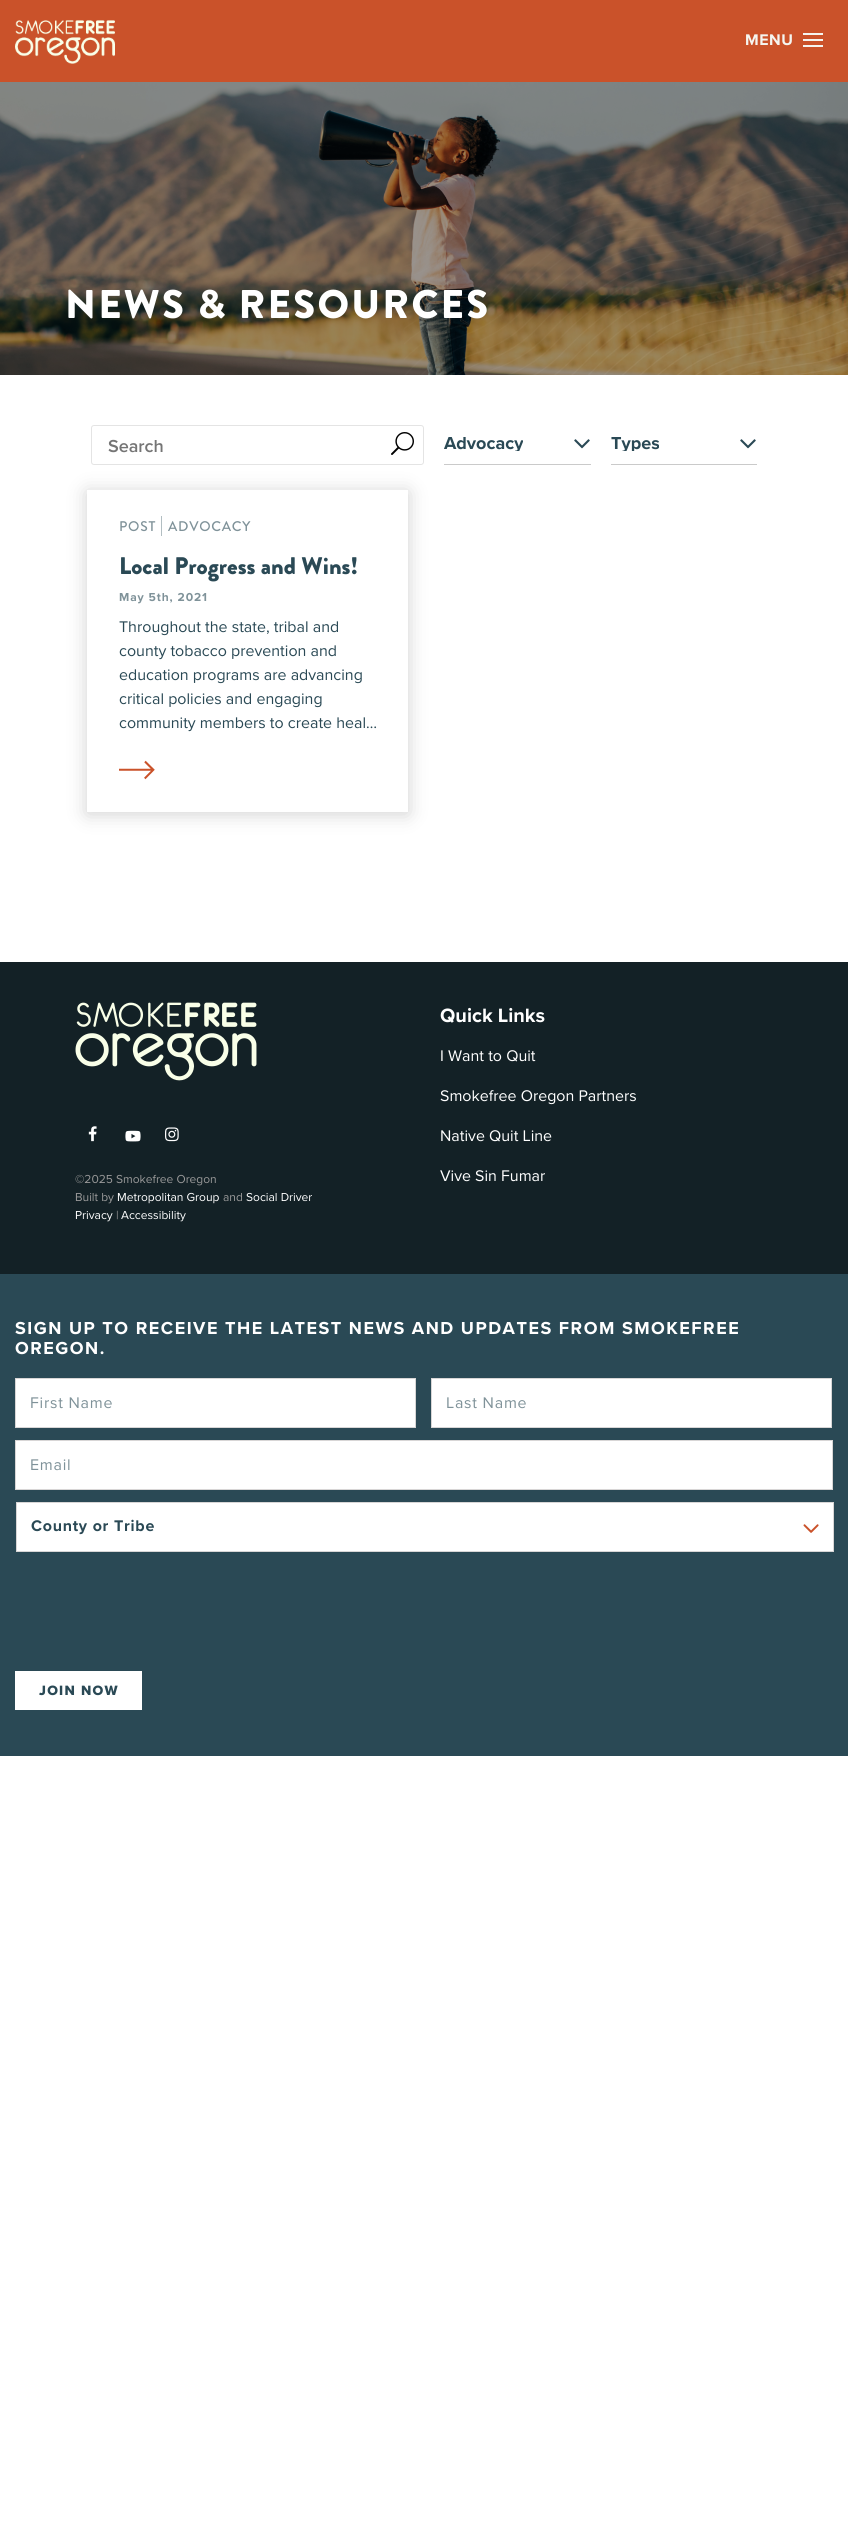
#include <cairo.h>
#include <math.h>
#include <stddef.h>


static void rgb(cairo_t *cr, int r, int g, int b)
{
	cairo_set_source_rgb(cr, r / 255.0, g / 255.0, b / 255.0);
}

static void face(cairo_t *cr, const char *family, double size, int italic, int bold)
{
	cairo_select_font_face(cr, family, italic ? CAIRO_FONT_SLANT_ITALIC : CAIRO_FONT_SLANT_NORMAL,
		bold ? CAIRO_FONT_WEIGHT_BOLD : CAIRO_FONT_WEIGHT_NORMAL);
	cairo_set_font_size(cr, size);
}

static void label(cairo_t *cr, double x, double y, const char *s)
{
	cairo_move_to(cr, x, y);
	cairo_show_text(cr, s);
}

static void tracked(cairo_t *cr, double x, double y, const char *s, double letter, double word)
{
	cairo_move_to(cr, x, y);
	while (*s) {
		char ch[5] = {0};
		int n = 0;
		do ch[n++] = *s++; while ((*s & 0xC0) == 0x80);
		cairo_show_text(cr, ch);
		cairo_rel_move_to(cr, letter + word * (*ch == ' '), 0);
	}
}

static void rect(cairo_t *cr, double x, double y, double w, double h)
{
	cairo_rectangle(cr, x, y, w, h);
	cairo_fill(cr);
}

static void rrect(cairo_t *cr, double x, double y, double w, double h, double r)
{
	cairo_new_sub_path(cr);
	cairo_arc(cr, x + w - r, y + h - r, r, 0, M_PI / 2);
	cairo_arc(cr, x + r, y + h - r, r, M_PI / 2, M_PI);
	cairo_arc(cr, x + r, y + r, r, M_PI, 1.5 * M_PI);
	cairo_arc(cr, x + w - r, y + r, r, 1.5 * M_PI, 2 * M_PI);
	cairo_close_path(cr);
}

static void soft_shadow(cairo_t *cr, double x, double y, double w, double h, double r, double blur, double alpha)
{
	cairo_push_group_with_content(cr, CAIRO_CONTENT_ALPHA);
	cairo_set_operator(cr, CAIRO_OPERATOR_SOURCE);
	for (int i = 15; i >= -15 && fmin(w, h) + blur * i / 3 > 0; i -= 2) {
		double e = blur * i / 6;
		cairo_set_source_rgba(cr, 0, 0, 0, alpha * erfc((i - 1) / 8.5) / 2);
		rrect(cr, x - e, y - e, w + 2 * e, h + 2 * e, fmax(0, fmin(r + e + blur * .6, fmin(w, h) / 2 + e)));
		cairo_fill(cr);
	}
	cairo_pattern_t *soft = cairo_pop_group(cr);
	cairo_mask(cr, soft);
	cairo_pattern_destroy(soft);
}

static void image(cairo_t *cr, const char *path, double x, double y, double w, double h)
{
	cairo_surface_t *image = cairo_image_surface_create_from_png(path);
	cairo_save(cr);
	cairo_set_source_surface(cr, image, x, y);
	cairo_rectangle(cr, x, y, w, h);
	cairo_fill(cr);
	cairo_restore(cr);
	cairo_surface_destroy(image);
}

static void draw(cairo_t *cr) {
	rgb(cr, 255, 255, 255);
	cairo_paint(cr);
	rgb(cr, 202, 82, 42);
	rect(cr, 0, 0, 848, 82);
	image(cr, "image0.png", 15, 20, 100, 44);
	face(cr, "Proxima Nova", 16, 0, 1);
	rgb(cr, 245, 245, 240);
	tracked(cr, 745, 45, "MENU", 0.5, 0);
	rect(cr, 803, 39, 20, 2);
	rect(cr, 803, 33, 20, 2);
	rect(cr, 803, 45, 20, 2);
	image(cr, "image1.png", 0, 82, 848, 293);
	image(cr, "image2.png", 404, 165, 444, 210);
	face(cr, "Brandon Grotesque Black", 40, 0, 0);
	rgb(cr, 255, 255, 255);
	tracked(cr, 65, 318, "NEWS & RESOURCES", 2.25, 0);
	rgb(cr, 178, 190, 194);
	rect(cr, 161, 516, 1, 20);
	image(cr, "image5.png", 119, 760, 36, 20);
	cairo_save(cr);
	cairo_set_fill_rule(cr, CAIRO_FILL_RULE_EVEN_ODD);
	cairo_new_path(cr);
	cairo_move_to(cr, 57, 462);
	cairo_line_to(cr, 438, 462);
	cairo_line_to(cr, 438, 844);
	cairo_line_to(cr, 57, 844);
	cairo_close_path(cr);
	cairo_move_to(cr, 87, 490);
	cairo_line_to(cr, 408, 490);
	cairo_line_to(cr, 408, 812);
	cairo_line_to(cr, 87, 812);
	cairo_close_path(cr);
	cairo_clip(cr);
	rgb(cr, 0, 0, 0);
	soft_shadow(cr, 87, 492, 321, 322, 0, 9.5, 0.18);
	cairo_restore(cr);
	rrect(cr, 91.5, 425.5, 332, 39, 2.5);
	rgb(cr, 228, 228, 228);
	cairo_set_line_width(cr, 1);
	cairo_stroke(cr);
	face(cr, "Proxima Nova SemiBold", 18, 0, 0);
	rgb(cr, 117, 117, 117);
	label(cr, 108, 452, "Search");
	image(cr, "image3.png", 391, 432, 23, 23);
	rgb(cr, 202, 202, 202);
	rect(cr, 444, 464, 147, 1);
	cairo_save(cr);
	cairo_rectangle(cr, 444, 435, 79, 16);
	cairo_clip(cr);
	face(cr, "Proxima Nova", 18, 0, 1);
	rgb(cr, 42, 73, 85);
	label(cr, 444, 449, "Advocacy");
	cairo_restore(cr);
	image(cr, "image4.png", 574, 439, 16, 10);
	rect(cr, 611, 464, 146, 1);
	cairo_save(cr);
	cairo_rectangle(cr, 611, 435, 48, 16);
	cairo_clip(cr);
	face(cr, "Proxima Nova", 18, 0, 1);
	rgb(cr, 42, 73, 85);
	label(cr, 611, 449, "Types");
	cairo_restore(cr);
	image(cr, "image4.png", 740, 439, 16, 10);
	face(cr, "Brandon Grotesque Medium", 14, 0, 0);
	rgb(cr, 127, 146, 153);
	tracked(cr, 119, 531, "POST", 0.75, 0);
	tracked(cr, 168, 531, "ADVOCACY", 0.75, 0);
	face(cr, "Brandon Grotesque Black", 24, 0, 0);
	rgb(cr, 42, 73, 85);
	label(cr, 119, 574, "Local Progress and Wins!");
	face(cr, "Proxima Nova", 12, 0, 1);
	rgb(cr, 127, 146, 153);
	tracked(cr, 119, 601, "May 5th, 2021", 0.9, 0);
	face(cr, "Proxima Nova", 16, 0, 0);
	rgb(cr, 42, 73, 85);
	label(cr, 119, 632, "Throughout the state, tribal and");
	label(cr, 119, 656, "county tobacco prevention and");
	label(cr, 119, 680, "education programs are advancing");
	label(cr, 119, 704, "critical policies and engaging");
	label(cr, 119, 728, "community members to create heal…");
	rgb(cr, 19, 33, 38);
	rect(cr, 0, 962, 848, 312);
	face(cr, "Proxima Nova", 20, 0, 1);
	rgb(cr, 255, 255, 255);
	label(cr, 440, 1022, "Quick Links");
	face(cr, "Proxima Nova", 16, 0, 0);
	label(cr, 440, 1061, "I Want to Quit");
	label(cr, 440, 1101, "Smokefree Oregon Partners");
	label(cr, 440, 1141, "Native Quit Line");
	label(cr, 440, 1181, "Vive Sin Fumar");
	image(cr, "image6.png", 75, 1002, 182, 79);
	image(cr, "image7.png", 88, 1126, 9, 16);
	image(cr, "image8.png", 125, 1130, 16, 12);
	image(cr, "image9.png", 165, 1127, 14, 15);
	face(cr, "Proxima Nova", 12, 0, 0);
	rgb(cr, 153, 153, 153);
	label(cr, 75, 1183, "©2025 Smokefree Oregon");
	label(cr, 75, 1201, "Built by");
	rgb(cr, 255, 255, 255);
	label(cr, 117, 1201, "Metropolitan Group");
	rgb(cr, 153, 153, 153);
	label(cr, 223, 1201, "and");
	rgb(cr, 255, 255, 255);
	label(cr, 246, 1201, "Social Driver");
	label(cr, 75, 1219, "Privacy");
	rgb(cr, 153, 153, 153);
	label(cr, 116, 1219, "|");
	rgb(cr, 255, 255, 255);
	label(cr, 121, 1219, "Accessibility");
	rgb(cr, 42, 73, 85);
	rect(cr, 0, 1274, 848, 482);
	face(cr, "Proxima Nova", 18, 0, 1);
	rgb(cr, 255, 255, 255);
	tracked(cr, 15, 1334, "SIGN UP TO RECEIVE THE LATEST NEWS AND UPDATES FROM SMOKEFREE", 1.5, 0);
	tracked(cr, 15, 1354, "OREGON.", 1.5, 0);
	cairo_rectangle(cr, 15.5, 1378.5, 400, 49);
	cairo_fill_preserve(cr);
	rgb(cr, 216, 214, 214);
	cairo_stroke(cr);
	face(cr, "Proxima Nova", 16, 0, 0);
	rgb(cr, 127, 146, 153);
	tracked(cr, 30, 1408, "First Name", 0.75, 0);
	rgb(cr, 255, 255, 255);
	cairo_rectangle(cr, 431.5, 1378.5, 400, 49);
	cairo_fill_preserve(cr);
	rgb(cr, 216, 214, 214);
	cairo_stroke(cr);
	rgb(cr, 127, 146, 153);
	tracked(cr, 446, 1408, "Last Name", 0.75, 0);
	rgb(cr, 255, 255, 255);
	cairo_rectangle(cr, 15.5, 1440.5, 817, 49);
	cairo_fill_preserve(cr);
	rgb(cr, 216, 214, 214);
	cairo_stroke(cr);
	rgb(cr, 127, 146, 153);
	tracked(cr, 30, 1470, "Email", 0.75, 0);
	rgb(cr, 255, 255, 255);
	cairo_rectangle(cr, 16.5, 1502.5, 817, 49);
	cairo_fill_preserve(cr);
	rgb(cr, 216, 214, 214);
	cairo_stroke(cr);
	face(cr, "Proxima Nova", 16, 0, 1);
	rgb(cr, 42, 73, 85);
	tracked(cr, 31, 1531, "County or Tribe", 0.75, 0);
	image(cr, "image10.png", 803, 1524, 18, 9);
	rgb(cr, 255, 255, 255);
	rect(cr, 15, 1671, 127, 39);
	face(cr, "Proxima Nova ExtraBold", 14, 0, 0);
	rgb(cr, 42, 73, 85);
	tracked(cr, 39, 1695, "JOIN NOW", 1.25, 0);
}

int main(void) {
	cairo_surface_t *surface = cairo_image_surface_create(CAIRO_FORMAT_RGB24, 848, 2525);
	cairo_t *cr = cairo_create(surface);
	cairo_font_options_t *options = cairo_font_options_create();
	cairo_font_options_set_hint_metrics(options, CAIRO_HINT_METRICS_OFF);
	cairo_font_options_set_hint_style(options, CAIRO_HINT_STYLE_NONE);
	cairo_set_font_options(cr, options);
	cairo_set_miter_limit(cr, 4);
	draw(cr);
	cairo_surface_write_to_png(surface, "render.png");
	cairo_font_options_destroy(options);
	cairo_destroy(cr);
	cairo_surface_destroy(surface);
	return 0;
}
